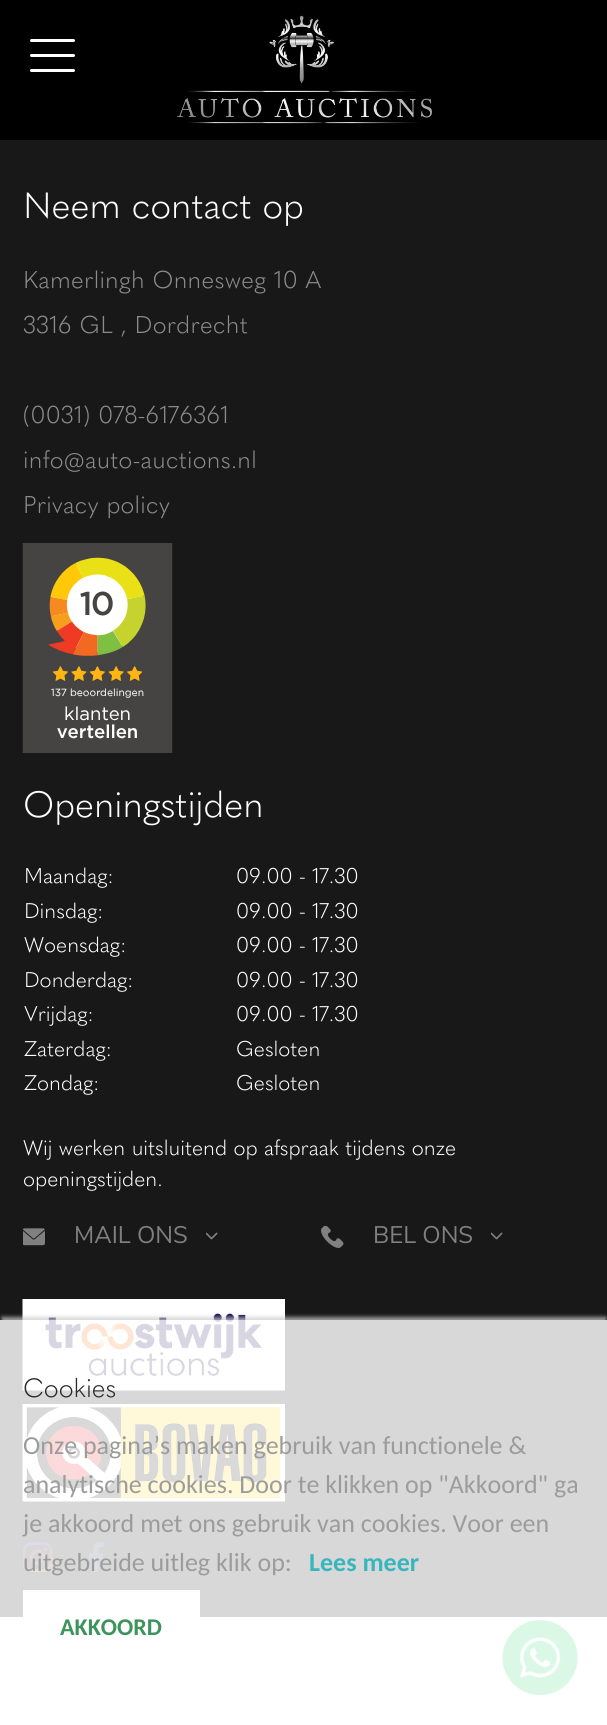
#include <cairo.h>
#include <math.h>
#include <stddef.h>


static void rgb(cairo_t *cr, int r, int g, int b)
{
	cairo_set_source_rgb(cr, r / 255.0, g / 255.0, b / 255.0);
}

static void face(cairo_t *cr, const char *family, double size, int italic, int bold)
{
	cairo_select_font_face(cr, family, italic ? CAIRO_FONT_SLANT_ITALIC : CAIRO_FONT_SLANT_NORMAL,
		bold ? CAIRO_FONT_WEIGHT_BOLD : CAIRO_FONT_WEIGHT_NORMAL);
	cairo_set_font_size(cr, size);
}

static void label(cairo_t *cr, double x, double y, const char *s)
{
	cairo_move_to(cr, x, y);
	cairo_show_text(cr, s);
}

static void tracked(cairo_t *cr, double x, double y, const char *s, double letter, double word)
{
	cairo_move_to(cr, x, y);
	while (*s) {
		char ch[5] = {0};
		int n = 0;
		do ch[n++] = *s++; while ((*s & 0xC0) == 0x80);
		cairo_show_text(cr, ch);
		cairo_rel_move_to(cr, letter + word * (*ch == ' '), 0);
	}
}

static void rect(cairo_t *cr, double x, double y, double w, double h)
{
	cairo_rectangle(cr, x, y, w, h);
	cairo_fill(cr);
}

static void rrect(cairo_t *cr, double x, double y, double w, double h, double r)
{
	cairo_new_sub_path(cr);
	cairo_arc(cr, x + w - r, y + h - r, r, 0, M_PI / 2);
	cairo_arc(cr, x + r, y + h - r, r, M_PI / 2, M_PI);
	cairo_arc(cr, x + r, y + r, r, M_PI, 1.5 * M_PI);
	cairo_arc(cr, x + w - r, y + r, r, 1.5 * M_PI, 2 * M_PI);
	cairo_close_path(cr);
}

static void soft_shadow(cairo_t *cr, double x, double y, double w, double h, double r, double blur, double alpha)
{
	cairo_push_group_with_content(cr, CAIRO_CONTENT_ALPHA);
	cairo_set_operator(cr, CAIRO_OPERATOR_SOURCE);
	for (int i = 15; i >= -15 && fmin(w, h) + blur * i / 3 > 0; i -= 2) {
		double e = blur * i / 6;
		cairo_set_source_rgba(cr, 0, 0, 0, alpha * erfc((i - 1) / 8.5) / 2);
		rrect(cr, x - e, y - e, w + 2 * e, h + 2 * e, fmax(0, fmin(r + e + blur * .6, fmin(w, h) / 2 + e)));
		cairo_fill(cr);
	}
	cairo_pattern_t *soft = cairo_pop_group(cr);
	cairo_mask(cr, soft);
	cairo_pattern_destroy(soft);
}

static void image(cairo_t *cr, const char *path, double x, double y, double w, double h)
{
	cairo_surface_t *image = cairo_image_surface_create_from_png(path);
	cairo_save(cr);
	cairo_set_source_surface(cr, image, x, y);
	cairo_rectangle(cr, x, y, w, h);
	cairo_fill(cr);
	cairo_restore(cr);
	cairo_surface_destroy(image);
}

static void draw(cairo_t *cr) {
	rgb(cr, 255, 255, 255);
	cairo_paint(cr);
	rgb(cr, 0, 0, 0);
	rect(cr, 0, 0, 607, 140);
	rgb(cr, 255, 255, 255);
	rrect(cr, 30, 69, 45, 3, 1.5);
	cairo_fill(cr);
	rrect(cr, 30, 39, 45, 3, 1.5);
	cairo_fill(cr);
	rrect(cr, 30, 54, 45, 3, 1.5);
	cairo_fill(cr);
	image(cr, "image0.png", 177, 15, 255, 109);
	rgb(cr, 24, 24, 24);
	rect(cr, 0, 140, 607, 1477);
	face(cr, "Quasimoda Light", 36, 0, 0);
	rgb(cr, 255, 255, 255);
	label(cr, 23, 218, "Neem contact op");
	face(cr, "Quasimoda Light", 24, 0, 0);
	rgb(cr, 140, 140, 140);
	tracked(cr, 23, 288, "Kamerlingh Onnesweg 10 A", 0.3, 0);
	tracked(cr, 23, 333, "3316 GL , Dordrecht", 0.3, 0);
	tracked(cr, 23, 423, "(0031) 078-6176361", 0.3, 0);
	tracked(cr, 23, 468, "info@auto-auctions.nl", 0.3, 0);
	tracked(cr, 23, 513, "Privacy policy", 0.3, 0);
	image(cr, "image1.png", 22, 543, 151, 210);
	face(cr, "Quasimoda Light", 36, 0, 0);
	rgb(cr, 255, 255, 255);
	label(cr, 23, 817, "Openingstijden");
	face(cr, "Quasimoda Light", 21, 0, 0);
	label(cr, 24, 883, "Maandag:");
	label(cr, 236, 883, "09.00 - 17.30");
	label(cr, 24, 918, "Dinsdag:");
	label(cr, 236, 918, "09.00 - 17.30");
	label(cr, 24, 952, "Woensdag:");
	label(cr, 236, 952, "09.00 - 17.30");
	label(cr, 24, 987, "Donderdag:");
	label(cr, 236, 987, "09.00 - 17.30");
	label(cr, 24, 1021, "Vrijdag:");
	label(cr, 236, 1021, "09.00 - 17.30");
	label(cr, 24, 1056, "Zaterdag:");
	label(cr, 236, 1056, "Gesloten");
	label(cr, 24, 1090, "Zondag:");
	label(cr, 236, 1090, "Gesloten");
	label(cr, 23, 1155, "Wij werken uitsluitend op afspraak tijdens onze");
	label(cr, 23, 1186, "openingstijden.");
	image(cr, "image2.png", 23, 1228, 22, 18);
	face(cr, "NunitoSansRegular", 24, 0, 0);
	rgb(cr, 128, 128, 128);
	label(cr, 74, 1243, "MAIL ONS");
	image(cr, "image3.png", 206, 1232, 12, 8);
	image(cr, "image4.png", 321, 1226, 23, 22);
	label(cr, 373, 1243, "BEL ONS");
	image(cr, "image3.png", 491, 1232, 12, 8);
	image(cr, "image5.png", 22, 1299, 263, 92);
	image(cr, "image6.png", 22, 1404, 263, 98);
	image(cr, "image7.png", 23, 1542, 30, 30);
	image(cr, "image8.png", 88, 1542, 16, 30);
	image(cr, "image9.png", 502, 1620, 76, 75);
	cairo_save(cr);
	cairo_rectangle(cr, 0, 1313, 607, 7);
	cairo_clip(cr);
	rgb(cr, 203, 203, 203);
	soft_shadow(cr, 2, 1317, 604, 402, 0, 2, 0.75);
	cairo_restore(cr);
	cairo_set_source_rgba(cr, 1, 1, 1, 0.83);
	rect(cr, 0, 1320, 607, 375);
	face(cr, "Quasimoda Light", 26, 0, 0);
	rgb(cr, 42, 42, 42);
	label(cr, 23, 1397, "Cookies");
	face(cr, "Carlito", 26, 0, 0);
	rgb(cr, 156, 156, 156);
	label(cr, 23, 1454, "Onze pagina’s maken gebruik van functionele &");
	label(cr, 23, 1493, "analytische cookies. Door te klikken op \"Akkoord\" ga");
	label(cr, 23, 1532, "je akkoord met ons gebruik van cookies. Voor een");
	label(cr, 23, 1571, "uitgebreide uitleg klik op:");
	face(cr, "Carlito", 26, 0, 1);
	rgb(cr, 56, 182, 190);
	label(cr, 309, 1571, "Lees meer");
	rgb(cr, 255, 255, 255);
	rect(cr, 23, 1590, 177, 27);
	face(cr, "Carlito", 24, 0, 1);
	rgb(cr, 60, 147, 92);
	label(cr, 60, 1635, "AKKOORD");
}

int main(void) {
	cairo_surface_t *surface = cairo_image_surface_create(CAIRO_FORMAT_RGB24, 607, 1725);
	cairo_t *cr = cairo_create(surface);
	cairo_font_options_t *options = cairo_font_options_create();
	cairo_font_options_set_hint_metrics(options, CAIRO_HINT_METRICS_OFF);
	cairo_font_options_set_hint_style(options, CAIRO_HINT_STYLE_NONE);
	cairo_set_font_options(cr, options);
	cairo_set_miter_limit(cr, 4);
	draw(cr);
	cairo_surface_write_to_png(surface, "render.png");
	cairo_font_options_destroy(options);
	cairo_destroy(cr);
	cairo_surface_destroy(surface);
	return 0;
}
